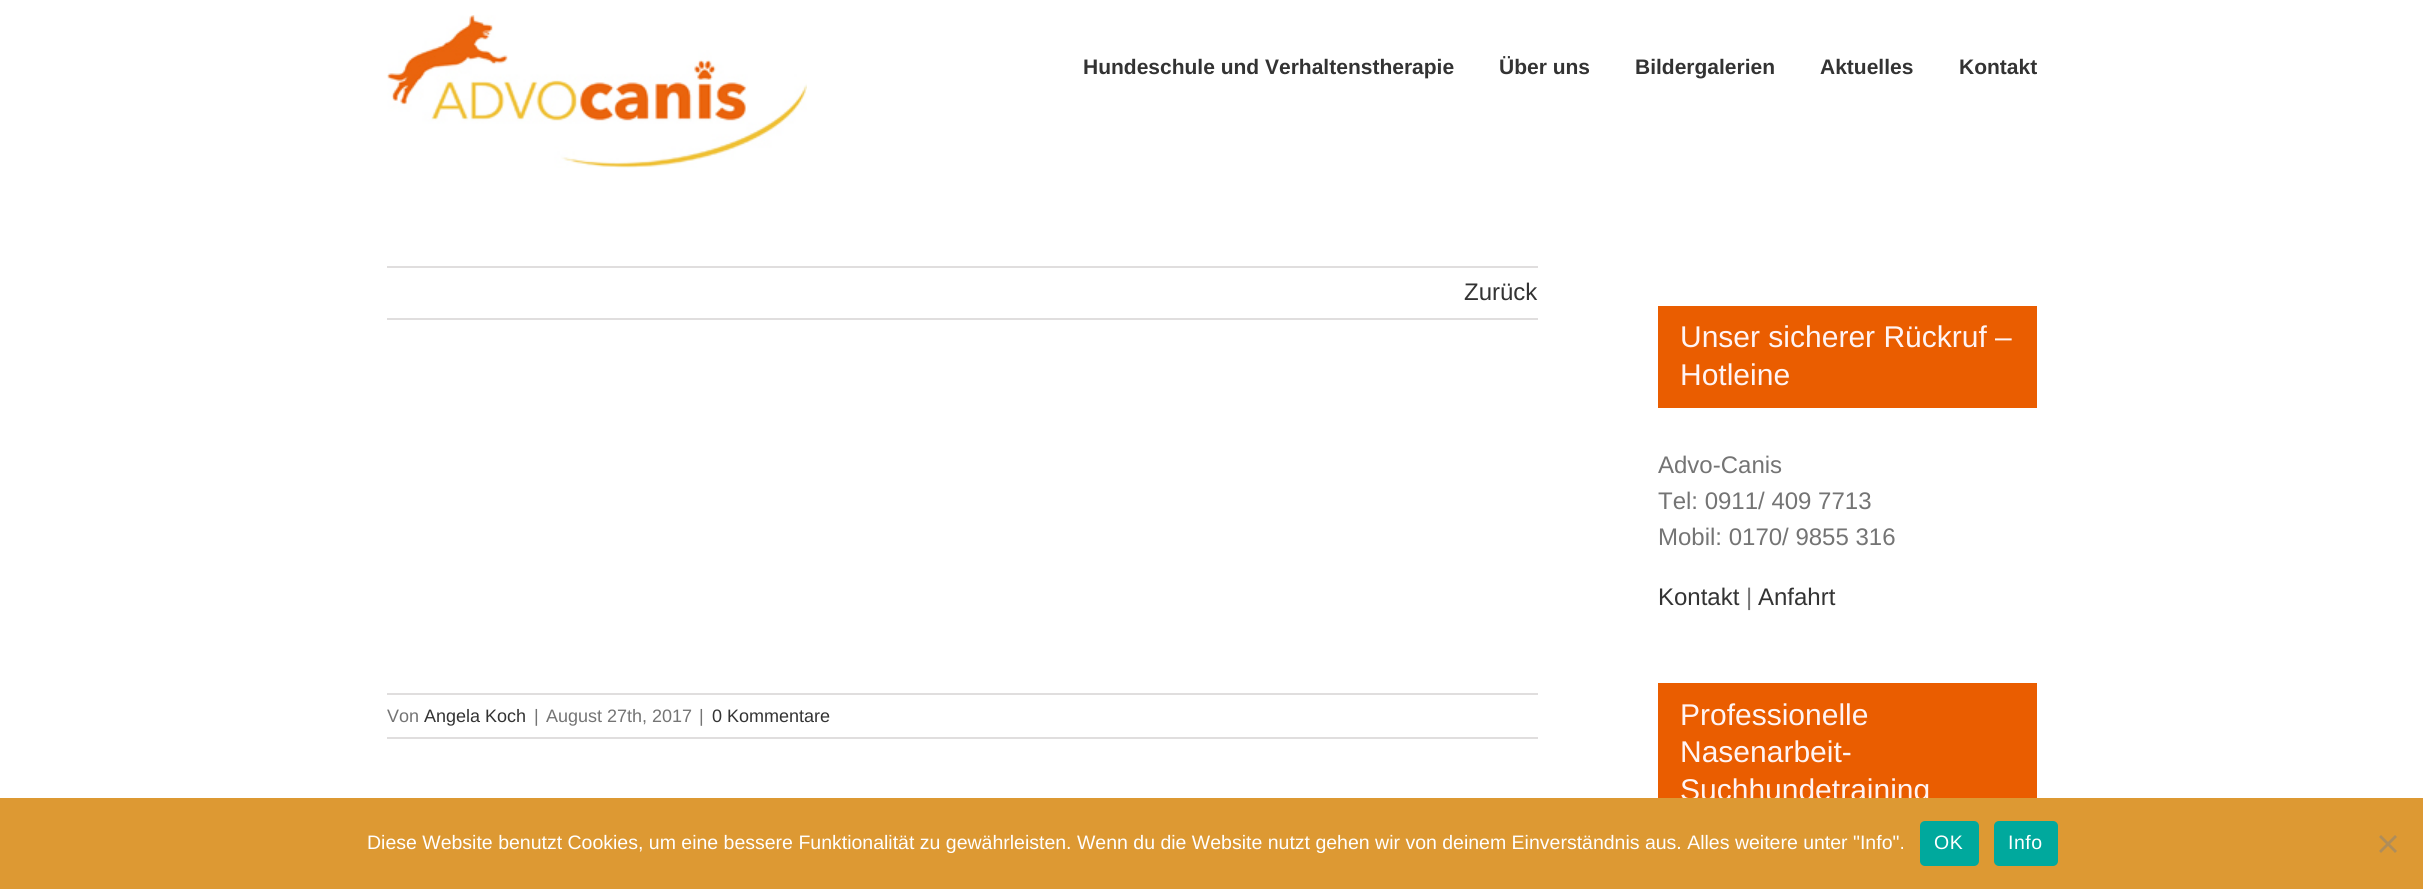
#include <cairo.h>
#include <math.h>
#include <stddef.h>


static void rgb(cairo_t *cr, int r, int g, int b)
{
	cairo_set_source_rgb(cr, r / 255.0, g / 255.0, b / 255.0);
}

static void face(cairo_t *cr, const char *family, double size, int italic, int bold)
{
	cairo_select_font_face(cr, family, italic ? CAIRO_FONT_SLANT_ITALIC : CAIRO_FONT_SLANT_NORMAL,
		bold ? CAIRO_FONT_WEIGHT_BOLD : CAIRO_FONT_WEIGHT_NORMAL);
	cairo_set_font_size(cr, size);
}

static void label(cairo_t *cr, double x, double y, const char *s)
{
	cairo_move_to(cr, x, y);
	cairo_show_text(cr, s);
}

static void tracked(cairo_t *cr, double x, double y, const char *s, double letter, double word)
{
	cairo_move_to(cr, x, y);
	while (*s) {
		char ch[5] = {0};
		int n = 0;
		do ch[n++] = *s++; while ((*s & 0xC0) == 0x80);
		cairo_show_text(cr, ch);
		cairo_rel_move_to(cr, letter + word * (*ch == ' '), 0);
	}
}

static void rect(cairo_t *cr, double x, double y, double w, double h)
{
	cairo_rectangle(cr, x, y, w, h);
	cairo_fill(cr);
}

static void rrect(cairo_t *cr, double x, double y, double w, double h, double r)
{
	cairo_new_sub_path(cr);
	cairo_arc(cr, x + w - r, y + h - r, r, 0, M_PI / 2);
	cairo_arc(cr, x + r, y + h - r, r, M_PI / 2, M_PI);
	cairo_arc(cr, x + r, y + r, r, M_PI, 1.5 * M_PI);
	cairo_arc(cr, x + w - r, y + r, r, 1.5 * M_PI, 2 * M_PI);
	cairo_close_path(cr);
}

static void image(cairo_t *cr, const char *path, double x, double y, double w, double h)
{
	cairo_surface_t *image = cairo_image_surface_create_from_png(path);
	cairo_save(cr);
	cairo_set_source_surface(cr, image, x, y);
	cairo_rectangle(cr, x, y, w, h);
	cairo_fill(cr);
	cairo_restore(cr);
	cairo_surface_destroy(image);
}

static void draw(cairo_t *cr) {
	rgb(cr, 255, 255, 255);
	cairo_paint(cr);
	image(cr, "image0.png", 387, 15, 420, 153);
	face(cr, "Liberation Sans", 21, 0, 1);
	rgb(cr, 51, 51, 51);
	label(cr, 1083, 74, "Hundeschule und Verhaltenstherapie");
	label(cr, 1499, 74, "Über uns");
	label(cr, 1635, 74, "Bildergalerien");
	label(cr, 1820, 74, "Aktuelles");
	label(cr, 1959, 74, "Kontakt");
	rgb(cr, 224, 222, 222);
	rect(cr, 387, 266, 1151, 2);
	rect(cr, 387, 318, 1151, 2);
	face(cr, "Liberation Sans", 24, 0, 0);
	rgb(cr, 51, 51, 51);
	label(cr, 1464, 300, "Zurück");
	rgb(cr, 224, 222, 222);
	rect(cr, 387, 693, 1151, 2);
	rect(cr, 387, 737, 1151, 2);
	face(cr, "Liberation Sans", 18, 0, 0);
	rgb(cr, 116, 116, 116);
	label(cr, 387, 722, "Von");
	rgb(cr, 51, 51, 51);
	label(cr, 424, 722, "Angela Koch");
	rgb(cr, 116, 116, 116);
	label(cr, 534, 722, "|");
	label(cr, 546, 722, "August 27th, 2017");
	label(cr, 699, 722, "|");
	rgb(cr, 51, 51, 51);
	label(cr, 712, 722, "0 Kommentare");
	rgb(cr, 234, 93, 0);
	rect(cr, 1658, 306, 379, 102);
	face(cr, "Liberation Sans", 30, 0, 0);
	rgb(cr, 255, 244, 244);
	label(cr, 1680, 347, "Unser sicherer Rückruf –");
	label(cr, 1680, 385, "Hotleine");
	face(cr, "Liberation Sans", 24, 0, 0);
	rgb(cr, 116, 116, 116);
	label(cr, 1658, 473, "Advo-Canis");
	label(cr, 1658, 509, "Tel: 0911/ 409 7713");
	label(cr, 1658, 545, "Mobil: 0170/ 9855 316");
	rgb(cr, 51, 51, 51);
	label(cr, 1658, 605, "Kontakt");
	rgb(cr, 116, 116, 116);
	label(cr, 1746, 605, "|");
	rgb(cr, 51, 51, 51);
	label(cr, 1758, 605, "Anfahrt");
	rgb(cr, 234, 93, 0);
	rect(cr, 1658, 683, 379, 115);
	face(cr, "Liberation Sans", 30, 0, 0);
	rgb(cr, 255, 244, 244);
	label(cr, 1680, 725, "Professionelle");
	label(cr, 1680, 762, "Nasenarbeit-");
	label(cr, 1680, 800, "Suchhundetraining");
	rgb(cr, 221, 153, 51);
	rect(cr, 0, 798, 2423, 91);
	face(cr, "Liberation Sans", 19.5, 0, 0);
	rgb(cr, 255, 255, 255);
	label(cr, 367, 849, "Diese Website benutzt Cookies, um eine bessere Funktionalität zu gewährleisten. Wenn du die Website nutzt gehen wir von deinem Einverständnis aus. Alles weitere unter \"Info\".");
	rgb(cr, 0, 169, 157);
	rrect(cr, 1920, 821, 59, 45, 5);
	cairo_fill(cr);
	rgb(cr, 255, 255, 255);
	tracked(cr, 1934, 849, "OK", 0.5, 0);
	rgb(cr, 0, 169, 157);
	rrect(cr, 1994, 821, 64, 45, 5);
	cairo_fill(cr);
	rgb(cr, 255, 255, 255);
	tracked(cr, 2008, 849, "Info", 0.5, 0);
	rgb(cr, 175, 141, 90);
	cairo_new_path(cr);
	cairo_move_to(cr, 2395, 835);
	cairo_line_to(cr, 2397, 837);
	cairo_line_to(cr, 2381, 853);
	cairo_line_to(cr, 2379, 851);
	cairo_close_path(cr);
	cairo_fill(cr);
	cairo_new_path(cr);
	cairo_move_to(cr, 2379, 837);
	cairo_line_to(cr, 2381, 835);
	cairo_line_to(cr, 2397, 851);
	cairo_line_to(cr, 2395, 853);
	cairo_close_path(cr);
	cairo_fill(cr);
}

int main(void) {
	cairo_surface_t *surface = cairo_image_surface_create(CAIRO_FORMAT_RGB24, 2423, 889);
	cairo_t *cr = cairo_create(surface);
	cairo_font_options_t *options = cairo_font_options_create();
	cairo_font_options_set_hint_metrics(options, CAIRO_HINT_METRICS_OFF);
	cairo_font_options_set_hint_style(options, CAIRO_HINT_STYLE_NONE);
	cairo_set_font_options(cr, options);
	cairo_set_miter_limit(cr, 4);
	draw(cr);
	cairo_surface_write_to_png(surface, "render.png");
	cairo_font_options_destroy(options);
	cairo_destroy(cr);
	cairo_surface_destroy(surface);
	return 0;
}
